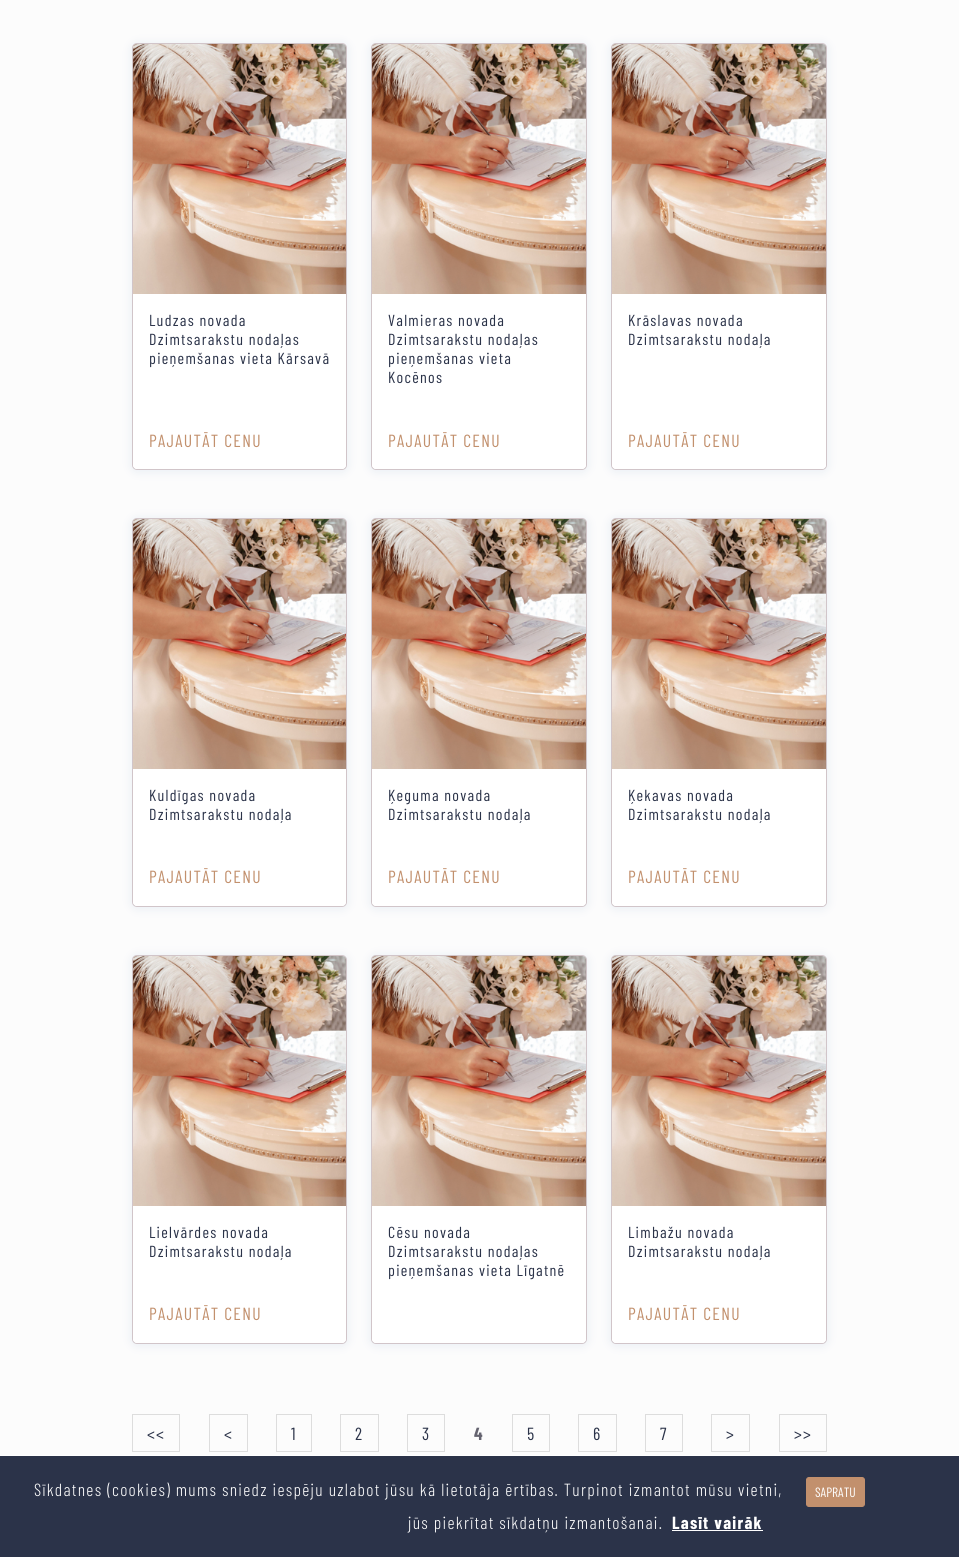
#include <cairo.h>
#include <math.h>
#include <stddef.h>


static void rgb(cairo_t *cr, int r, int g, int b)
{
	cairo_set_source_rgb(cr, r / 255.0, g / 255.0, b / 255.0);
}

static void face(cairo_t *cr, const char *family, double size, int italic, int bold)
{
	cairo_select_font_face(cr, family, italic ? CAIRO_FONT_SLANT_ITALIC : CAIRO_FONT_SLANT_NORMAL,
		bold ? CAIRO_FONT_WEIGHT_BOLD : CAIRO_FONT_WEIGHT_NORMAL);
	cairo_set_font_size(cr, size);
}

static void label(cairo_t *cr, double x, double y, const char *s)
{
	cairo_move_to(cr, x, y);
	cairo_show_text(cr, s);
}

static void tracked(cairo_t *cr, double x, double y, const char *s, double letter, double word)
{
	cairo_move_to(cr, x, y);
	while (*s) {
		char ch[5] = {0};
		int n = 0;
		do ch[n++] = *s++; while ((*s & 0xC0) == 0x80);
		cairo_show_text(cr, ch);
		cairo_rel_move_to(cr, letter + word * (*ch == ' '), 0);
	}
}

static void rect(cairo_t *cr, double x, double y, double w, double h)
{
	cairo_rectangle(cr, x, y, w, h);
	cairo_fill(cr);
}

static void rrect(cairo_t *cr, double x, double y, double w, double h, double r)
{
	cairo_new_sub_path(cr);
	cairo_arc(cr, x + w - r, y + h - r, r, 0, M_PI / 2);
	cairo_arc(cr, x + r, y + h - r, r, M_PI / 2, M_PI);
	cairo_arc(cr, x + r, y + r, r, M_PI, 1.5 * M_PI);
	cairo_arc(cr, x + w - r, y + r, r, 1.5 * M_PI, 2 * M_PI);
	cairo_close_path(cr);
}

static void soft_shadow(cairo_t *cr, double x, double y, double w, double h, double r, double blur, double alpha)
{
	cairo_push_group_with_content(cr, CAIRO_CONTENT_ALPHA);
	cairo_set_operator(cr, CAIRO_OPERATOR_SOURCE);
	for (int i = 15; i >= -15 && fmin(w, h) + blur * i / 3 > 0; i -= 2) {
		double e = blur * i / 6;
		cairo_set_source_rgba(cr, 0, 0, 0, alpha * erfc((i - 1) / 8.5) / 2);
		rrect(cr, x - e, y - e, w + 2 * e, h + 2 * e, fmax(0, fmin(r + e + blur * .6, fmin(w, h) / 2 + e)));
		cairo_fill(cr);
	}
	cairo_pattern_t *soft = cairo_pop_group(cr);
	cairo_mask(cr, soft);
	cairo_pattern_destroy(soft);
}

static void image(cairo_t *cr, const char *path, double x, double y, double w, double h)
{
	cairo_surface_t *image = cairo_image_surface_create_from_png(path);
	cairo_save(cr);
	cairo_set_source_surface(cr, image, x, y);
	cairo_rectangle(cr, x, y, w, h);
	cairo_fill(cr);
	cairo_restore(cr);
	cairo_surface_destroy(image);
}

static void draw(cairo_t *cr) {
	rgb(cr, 252, 252, 252);
	cairo_paint(cr);
	rgb(cr, 198, 211, 230);
	soft_shadow(cr, 132, 44, 215, 427, 5, 5, 0.4);
	rgb(cr, 255, 255, 255);
	rrect(cr, 132.5, 43.5, 214, 426, 4.5);
	cairo_fill_preserve(cr);
	rgb(cr, 209, 197, 201);
	cairo_set_line_width(cr, 1);
	cairo_stroke(cr);
	image(cr, "image0.png", 133, 44, 213, 250);
	face(cr, "Barlow Condensed", 16, 0, 0);
	rgb(cr, 43, 51, 73);
	tracked(cr, 149, 326, "Ludzas novada", 1.28, 0);
	tracked(cr, 149, 345, "Dzimtsarakstu nodaļas", 1.28, 0);
	tracked(cr, 149, 364, "pieņemšanas vieta Kārsavā", 1.28, 0);
	rgb(cr, 255, 255, 255);
	cairo_new_path(cr);
	cairo_move_to(cr, 133, 411);
	cairo_line_to(cr, 346, 411);
	cairo_line_to(cr, 346, 465);
	cairo_curve_to(cr, 346, 467, 344, 469, 342, 469);
	cairo_line_to(cr, 137, 469);
	cairo_curve_to(cr, 135, 469, 133, 467, 133, 465);
	cairo_close_path(cr);
	cairo_fill(cr);
	face(cr, "Barlow Condensed", 17.6, 0, 0);
	rgb(cr, 194, 144, 109);
	tracked(cr, 149, 447, "PAJAUTĀT CENU", 1.28, 0);
	rgb(cr, 198, 211, 230);
	soft_shadow(cr, 371, 44, 216, 427, 5, 5, 0.4);
	rgb(cr, 255, 255, 255);
	rrect(cr, 371.5, 43.5, 215, 426, 4.5);
	cairo_fill_preserve(cr);
	rgb(cr, 209, 197, 201);
	cairo_stroke(cr);
	image(cr, "image1.png", 372, 44, 214, 250);
	face(cr, "Barlow Condensed", 16, 0, 0);
	rgb(cr, 43, 51, 73);
	tracked(cr, 388, 326, "Valmieras novada", 1.28, 0);
	tracked(cr, 388, 345, "Dzimtsarakstu nodaļas", 1.28, 0);
	tracked(cr, 388, 364, "pieņemšanas vieta", 1.28, 0);
	tracked(cr, 388, 383, "Kocēnos", 1.28, 0);
	rgb(cr, 255, 255, 255);
	cairo_new_path(cr);
	cairo_move_to(cr, 372, 411);
	cairo_line_to(cr, 586, 411);
	cairo_line_to(cr, 586, 465);
	cairo_curve_to(cr, 586, 467, 584, 469, 582, 469);
	cairo_line_to(cr, 376, 469);
	cairo_curve_to(cr, 374, 469, 372, 467, 372, 465);
	cairo_close_path(cr);
	cairo_fill(cr);
	face(cr, "Barlow Condensed", 17.6, 0, 0);
	rgb(cr, 194, 144, 109);
	tracked(cr, 388, 447, "PAJAUTĀT CENU", 1.28, 0);
	rgb(cr, 198, 211, 230);
	soft_shadow(cr, 611, 44, 216, 427, 5, 5, 0.4);
	rgb(cr, 255, 255, 255);
	rrect(cr, 611.5, 43.5, 215, 426, 4.5);
	cairo_fill_preserve(cr);
	rgb(cr, 209, 197, 201);
	cairo_stroke(cr);
	image(cr, "image1.png", 612, 44, 214, 250);
	face(cr, "Barlow Condensed", 16, 0, 0);
	rgb(cr, 43, 51, 73);
	tracked(cr, 628, 326, "Krāslavas novada", 1.28, 0);
	tracked(cr, 628, 345, "Dzimtsarakstu nodaļa", 1.28, 0);
	rgb(cr, 255, 255, 255);
	cairo_new_path(cr);
	cairo_move_to(cr, 612, 411);
	cairo_line_to(cr, 826, 411);
	cairo_line_to(cr, 826, 465);
	cairo_curve_to(cr, 826, 467, 824, 469, 822, 469);
	cairo_line_to(cr, 616, 469);
	cairo_curve_to(cr, 614, 469, 612, 467, 612, 465);
	cairo_close_path(cr);
	cairo_fill(cr);
	face(cr, "Barlow Condensed", 17.6, 0, 0);
	rgb(cr, 194, 144, 109);
	tracked(cr, 628, 447, "PAJAUTĀT CENU", 1.28, 0);
	rgb(cr, 198, 211, 230);
	soft_shadow(cr, 132, 519, 215, 389, 5, 5, 0.4);
	rgb(cr, 255, 255, 255);
	rrect(cr, 132.5, 518.5, 214, 388, 4.5);
	cairo_fill_preserve(cr);
	rgb(cr, 209, 197, 201);
	cairo_stroke(cr);
	image(cr, "image0.png", 133, 519, 213, 250);
	face(cr, "Barlow Condensed", 16, 0, 0);
	rgb(cr, 43, 51, 73);
	tracked(cr, 149, 801, "Kuldīgas novada", 1.28, 0);
	tracked(cr, 149, 820, "Dzimtsarakstu nodaļa", 1.28, 0);
	rgb(cr, 255, 255, 255);
	cairo_new_path(cr);
	cairo_move_to(cr, 133, 847);
	cairo_line_to(cr, 346, 847);
	cairo_line_to(cr, 346, 902);
	cairo_curve_to(cr, 346, 904, 344, 906, 342, 906);
	cairo_line_to(cr, 137, 906);
	cairo_curve_to(cr, 135, 906, 133, 904, 133, 902);
	cairo_close_path(cr);
	cairo_fill(cr);
	face(cr, "Barlow Condensed", 17.6, 0, 0);
	rgb(cr, 194, 144, 109);
	tracked(cr, 149, 883, "PAJAUTĀT CENU", 1.28, 0);
	rgb(cr, 198, 211, 230);
	soft_shadow(cr, 371, 519, 216, 389, 5, 5, 0.4);
	rgb(cr, 255, 255, 255);
	rrect(cr, 371.5, 518.5, 215, 388, 4.5);
	cairo_fill_preserve(cr);
	rgb(cr, 209, 197, 201);
	cairo_stroke(cr);
	image(cr, "image1.png", 372, 519, 214, 250);
	face(cr, "Barlow Condensed", 16, 0, 0);
	rgb(cr, 43, 51, 73);
	tracked(cr, 388, 801, "Ķeguma novada", 1.28, 0);
	tracked(cr, 388, 820, "Dzimtsarakstu nodaļa", 1.28, 0);
	rgb(cr, 255, 255, 255);
	cairo_new_path(cr);
	cairo_move_to(cr, 372, 847);
	cairo_line_to(cr, 586, 847);
	cairo_line_to(cr, 586, 902);
	cairo_curve_to(cr, 586, 904, 584, 906, 582, 906);
	cairo_line_to(cr, 376, 906);
	cairo_curve_to(cr, 374, 906, 372, 904, 372, 902);
	cairo_close_path(cr);
	cairo_fill(cr);
	face(cr, "Barlow Condensed", 17.6, 0, 0);
	rgb(cr, 194, 144, 109);
	tracked(cr, 388, 883, "PAJAUTĀT CENU", 1.28, 0);
	rgb(cr, 198, 211, 230);
	soft_shadow(cr, 611, 519, 216, 389, 5, 5, 0.4);
	rgb(cr, 255, 255, 255);
	rrect(cr, 611.5, 518.5, 215, 388, 4.5);
	cairo_fill_preserve(cr);
	rgb(cr, 209, 197, 201);
	cairo_stroke(cr);
	image(cr, "image1.png", 612, 519, 214, 250);
	face(cr, "Barlow Condensed", 16, 0, 0);
	rgb(cr, 43, 51, 73);
	tracked(cr, 628, 801, "Ķekavas novada", 1.28, 0);
	tracked(cr, 628, 820, "Dzimtsarakstu nodaļa", 1.28, 0);
	rgb(cr, 255, 255, 255);
	cairo_new_path(cr);
	cairo_move_to(cr, 612, 847);
	cairo_line_to(cr, 826, 847);
	cairo_line_to(cr, 826, 902);
	cairo_curve_to(cr, 826, 904, 824, 906, 822, 906);
	cairo_line_to(cr, 616, 906);
	cairo_curve_to(cr, 614, 906, 612, 904, 612, 902);
	cairo_close_path(cr);
	cairo_fill(cr);
	face(cr, "Barlow Condensed", 17.6, 0, 0);
	rgb(cr, 194, 144, 109);
	tracked(cr, 628, 883, "PAJAUTĀT CENU", 1.28, 0);
	rgb(cr, 198, 211, 230);
	soft_shadow(cr, 132, 956, 215, 389, 5, 5, 0.4);
	rgb(cr, 255, 255, 255);
	rrect(cr, 132.5, 955.5, 214, 388, 4.5);
	cairo_fill_preserve(cr);
	rgb(cr, 209, 197, 201);
	cairo_stroke(cr);
	image(cr, "image2.png", 133, 956, 213, 250);
	face(cr, "Barlow Condensed", 16, 0, 0);
	rgb(cr, 43, 51, 73);
	tracked(cr, 149, 1238, "Lielvārdes novada", 1.28, 0);
	tracked(cr, 149, 1257, "Dzimtsarakstu nodaļa", 1.28, 0);
	rgb(cr, 255, 255, 255);
	cairo_new_path(cr);
	cairo_move_to(cr, 133, 1284);
	cairo_line_to(cr, 346, 1284);
	cairo_line_to(cr, 346, 1339);
	cairo_curve_to(cr, 346, 1341, 344, 1343, 342, 1343);
	cairo_line_to(cr, 137, 1343);
	cairo_curve_to(cr, 135, 1343, 133, 1341, 133, 1339);
	cairo_close_path(cr);
	cairo_fill(cr);
	face(cr, "Barlow Condensed", 17.6, 0, 0);
	rgb(cr, 194, 144, 109);
	tracked(cr, 149, 1320, "PAJAUTĀT CENU", 1.28, 0);
	rgb(cr, 198, 211, 230);
	soft_shadow(cr, 371, 956, 216, 389, 5, 5, 0.4);
	rgb(cr, 255, 255, 255);
	rrect(cr, 371.5, 955.5, 215, 388, 4.5);
	cairo_fill_preserve(cr);
	rgb(cr, 209, 197, 201);
	cairo_stroke(cr);
	image(cr, "image3.png", 372, 956, 214, 250);
	face(cr, "Barlow Condensed", 16, 0, 0);
	rgb(cr, 43, 51, 73);
	tracked(cr, 388, 1238, "Cēsu novada", 1.28, 0);
	tracked(cr, 388, 1257, "Dzimtsarakstu nodaļas", 1.28, 0);
	tracked(cr, 388, 1276, "pieņemšanas vieta Līgatnē", 1.28, 0);
	rgb(cr, 255, 255, 255);
	cairo_new_path(cr);
	cairo_move_to(cr, 372, 1311);
	cairo_line_to(cr, 586, 1311);
	cairo_line_to(cr, 586, 1339);
	cairo_curve_to(cr, 586, 1341, 584, 1343, 582, 1343);
	cairo_line_to(cr, 376, 1343);
	cairo_curve_to(cr, 374, 1343, 372, 1341, 372, 1339);
	cairo_close_path(cr);
	cairo_fill(cr);
	rgb(cr, 198, 211, 230);
	soft_shadow(cr, 611, 956, 216, 389, 5, 5, 0.4);
	rgb(cr, 255, 255, 255);
	rrect(cr, 611.5, 955.5, 215, 388, 4.5);
	cairo_fill_preserve(cr);
	rgb(cr, 209, 197, 201);
	cairo_stroke(cr);
	image(cr, "image3.png", 612, 956, 214, 250);
	rgb(cr, 43, 51, 73);
	tracked(cr, 628, 1238, "Limbažu novada", 1.28, 0);
	tracked(cr, 628, 1257, "Dzimtsarakstu nodaļa", 1.28, 0);
	rgb(cr, 255, 255, 255);
	cairo_new_path(cr);
	cairo_move_to(cr, 612, 1284);
	cairo_line_to(cr, 826, 1284);
	cairo_line_to(cr, 826, 1339);
	cairo_curve_to(cr, 826, 1341, 824, 1343, 822, 1343);
	cairo_line_to(cr, 616, 1343);
	cairo_curve_to(cr, 614, 1343, 612, 1341, 612, 1339);
	cairo_close_path(cr);
	cairo_fill(cr);
	face(cr, "Barlow Condensed", 17.6, 0, 0);
	rgb(cr, 194, 144, 109);
	tracked(cr, 628, 1320, "PAJAUTĀT CENU", 1.28, 0);
	cairo_rectangle(cr, 132.5, 1414.5, 47, 37);
	rgb(cr, 221, 221, 221);
	cairo_stroke(cr);
	rgb(cr, 43, 51, 73);
	tracked(cr, 147, 1440, "<<", 1.28, 0);
	cairo_rectangle(cr, 209.5, 1414.5, 38, 37);
	rgb(cr, 221, 221, 221);
	cairo_stroke(cr);
	rgb(cr, 43, 51, 73);
	tracked(cr, 224, 1440, "<", 1.28, 0);
	cairo_rectangle(cr, 276.5, 1414.5, 35, 37);
	rgb(cr, 221, 221, 221);
	cairo_stroke(cr);
	rgb(cr, 43, 51, 73);
	tracked(cr, 291, 1440, "1", 1.28, 0);
	cairo_rectangle(cr, 340.5, 1414.5, 38, 37);
	rgb(cr, 221, 221, 221);
	cairo_stroke(cr);
	rgb(cr, 43, 51, 73);
	tracked(cr, 355, 1440, "2", 1.28, 0);
	cairo_rectangle(cr, 407.5, 1414.5, 37, 37);
	rgb(cr, 221, 221, 221);
	cairo_stroke(cr);
	rgb(cr, 43, 51, 73);
	tracked(cr, 422, 1440, "3", 1.28, 0);
	face(cr, "Barlow Condensed", 17.6, 0, 1);
	rgb(cr, 100, 99, 111);
	tracked(cr, 474, 1440, "4", 1.28, 0);
	cairo_rectangle(cr, 512.5, 1414.5, 37, 37);
	rgb(cr, 221, 221, 221);
	cairo_stroke(cr);
	face(cr, "Barlow Condensed", 17.6, 0, 0);
	rgb(cr, 43, 51, 73);
	tracked(cr, 527, 1440, "5", 1.28, 0);
	cairo_rectangle(cr, 578.5, 1414.5, 38, 37);
	rgb(cr, 221, 221, 221);
	cairo_stroke(cr);
	rgb(cr, 43, 51, 73);
	tracked(cr, 593, 1440, "6", 1.28, 0);
	cairo_rectangle(cr, 645.5, 1414.5, 37, 37);
	rgb(cr, 221, 221, 221);
	cairo_stroke(cr);
	rgb(cr, 43, 51, 73);
	tracked(cr, 660, 1440, "7", 1.28, 0);
	cairo_rectangle(cr, 711.5, 1414.5, 38, 37);
	rgb(cr, 221, 221, 221);
	cairo_stroke(cr);
	rgb(cr, 43, 51, 73);
	tracked(cr, 726, 1440, ">", 1.28, 0);
	cairo_rectangle(cr, 779.5, 1414.5, 47, 37);
	rgb(cr, 221, 221, 221);
	cairo_stroke(cr);
	rgb(cr, 43, 51, 73);
	tracked(cr, 794, 1440, ">>", 1.28, 0);
	rect(cr, 0, 1456, 959, 101);
	rgb(cr, 255, 255, 255);
	rect(cr, 0, 1455, 959, 1);
	face(cr, "Barlow Condensed Light", 17.6, 0, 0);
	tracked(cr, 34, 1496, "Sīkdatnes (cookies) mums sniedz iespēju uzlabot jūsu kā lietotāja ērtības. Turpinot izmantot mūsu vietni,", 1.28, 0);
	tracked(cr, 408, 1529, "jūs piekrītat sīkdatņu izmantošanai.", 1.28, 0);
	face(cr, "Barlow Condensed", 17.6, 0, 1);
	tracked(cr, 672, 1529, "Lasīt vairāk", 1.28, 0);
	rect(cr, 672, 1530, 91, 1);
	rgb(cr, 194, 144, 109);
	rrect(cr, 806.5, 1477.5, 58, 29, 2.5);
	cairo_fill_preserve(cr);
	cairo_stroke(cr);
	face(cr, "Barlow Condensed", 13.5, 0, 0);
	rgb(cr, 255, 255, 255);
	label(cr, 815, 1497, "SAPRATU");
}

int main(void) {
	cairo_surface_t *surface = cairo_image_surface_create(CAIRO_FORMAT_RGB24, 959, 1557);
	cairo_t *cr = cairo_create(surface);
	cairo_font_options_t *options = cairo_font_options_create();
	cairo_font_options_set_hint_metrics(options, CAIRO_HINT_METRICS_OFF);
	cairo_font_options_set_hint_style(options, CAIRO_HINT_STYLE_NONE);
	cairo_set_font_options(cr, options);
	cairo_set_miter_limit(cr, 4);
	draw(cr);
	cairo_surface_write_to_png(surface, "render.png");
	cairo_font_options_destroy(options);
	cairo_destroy(cr);
	cairo_surface_destroy(surface);
	return 0;
}
